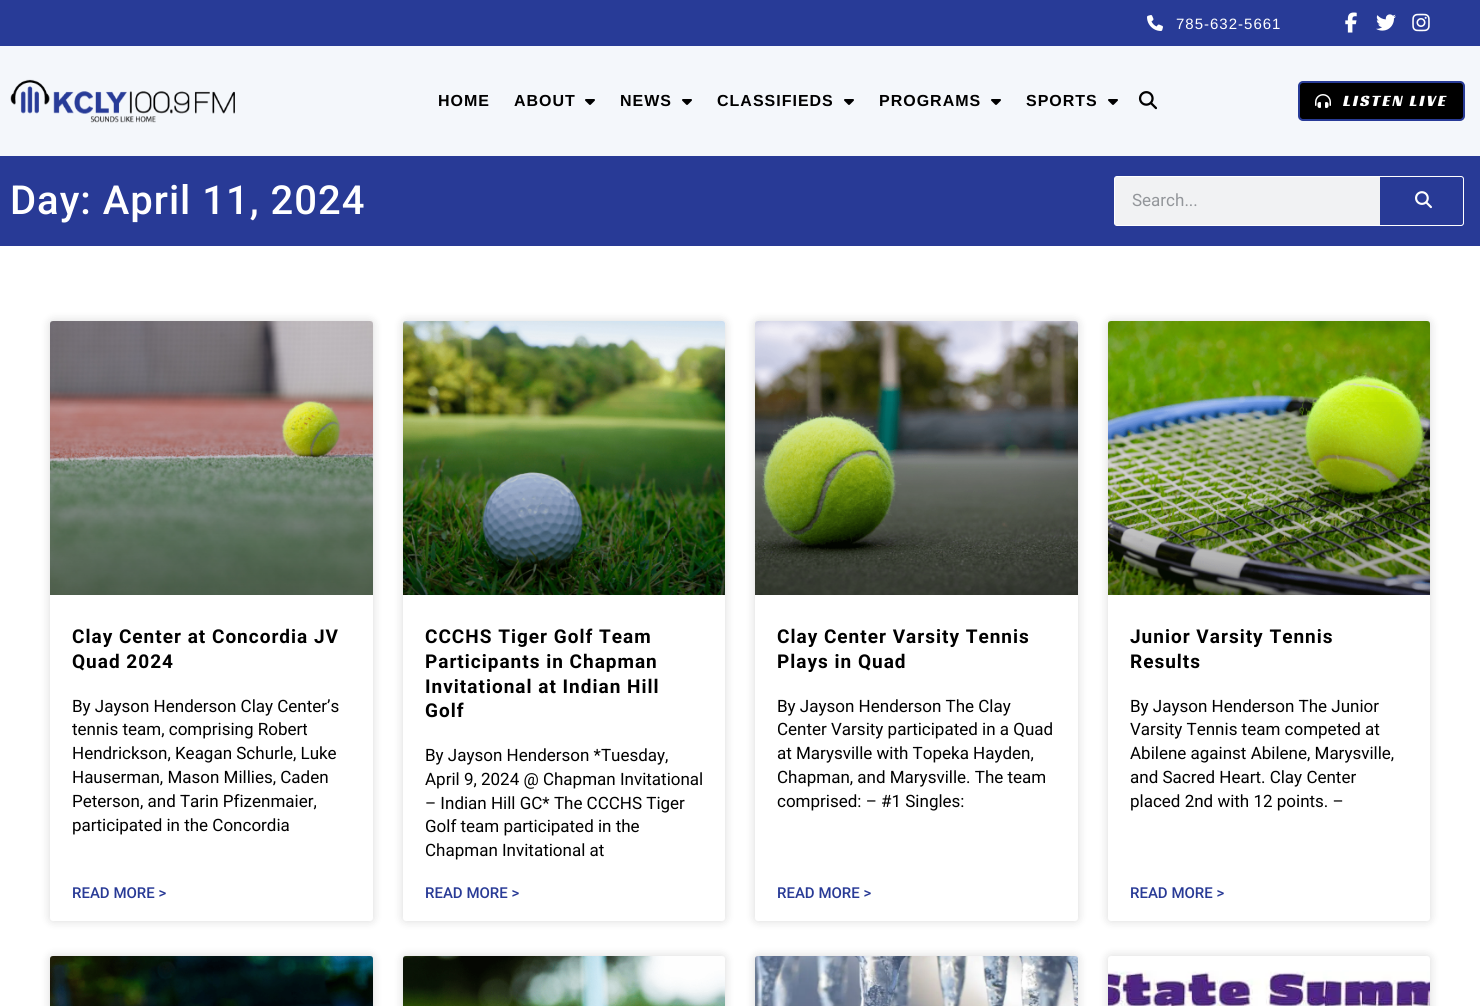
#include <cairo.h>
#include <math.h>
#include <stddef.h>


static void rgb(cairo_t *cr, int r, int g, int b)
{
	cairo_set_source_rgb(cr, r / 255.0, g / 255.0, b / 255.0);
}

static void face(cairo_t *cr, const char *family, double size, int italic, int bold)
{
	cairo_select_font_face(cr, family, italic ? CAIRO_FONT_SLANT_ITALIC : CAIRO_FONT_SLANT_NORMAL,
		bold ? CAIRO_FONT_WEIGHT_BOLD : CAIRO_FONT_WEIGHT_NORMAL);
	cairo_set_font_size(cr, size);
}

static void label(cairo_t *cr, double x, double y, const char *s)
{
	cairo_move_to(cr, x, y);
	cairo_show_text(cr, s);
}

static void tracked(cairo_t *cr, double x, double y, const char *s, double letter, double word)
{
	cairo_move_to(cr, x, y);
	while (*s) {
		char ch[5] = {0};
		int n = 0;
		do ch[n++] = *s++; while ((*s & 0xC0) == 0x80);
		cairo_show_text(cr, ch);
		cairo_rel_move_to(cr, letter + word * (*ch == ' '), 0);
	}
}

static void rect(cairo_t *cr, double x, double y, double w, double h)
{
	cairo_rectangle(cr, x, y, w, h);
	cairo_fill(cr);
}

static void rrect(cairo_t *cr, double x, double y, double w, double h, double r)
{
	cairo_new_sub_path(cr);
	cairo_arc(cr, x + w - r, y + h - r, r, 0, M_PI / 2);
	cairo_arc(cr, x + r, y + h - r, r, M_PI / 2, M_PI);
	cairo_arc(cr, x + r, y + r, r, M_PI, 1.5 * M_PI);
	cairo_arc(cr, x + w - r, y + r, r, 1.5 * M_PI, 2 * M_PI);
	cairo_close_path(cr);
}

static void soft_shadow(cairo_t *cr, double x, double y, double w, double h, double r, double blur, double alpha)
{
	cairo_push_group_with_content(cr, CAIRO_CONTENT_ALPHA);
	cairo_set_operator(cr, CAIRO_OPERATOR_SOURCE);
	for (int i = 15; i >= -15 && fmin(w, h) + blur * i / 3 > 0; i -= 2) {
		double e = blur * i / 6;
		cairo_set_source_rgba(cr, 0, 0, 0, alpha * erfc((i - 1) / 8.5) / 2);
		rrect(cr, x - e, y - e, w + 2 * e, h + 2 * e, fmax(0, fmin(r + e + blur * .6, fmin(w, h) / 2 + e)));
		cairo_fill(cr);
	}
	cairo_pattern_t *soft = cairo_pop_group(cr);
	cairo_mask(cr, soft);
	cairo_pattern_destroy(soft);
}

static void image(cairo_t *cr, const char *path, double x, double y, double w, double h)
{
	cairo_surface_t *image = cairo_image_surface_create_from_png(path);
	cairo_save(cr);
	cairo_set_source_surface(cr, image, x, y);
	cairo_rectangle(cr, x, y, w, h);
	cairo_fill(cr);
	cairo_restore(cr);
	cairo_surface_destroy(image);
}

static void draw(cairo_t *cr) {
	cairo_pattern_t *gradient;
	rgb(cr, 255, 255, 255);
	cairo_paint(cr);
	rgb(cr, 40, 59, 151);
	rect(cr, 0, 0, 1480, 46);
	image(cr, "image0.png", 1147, 15, 16, 16);
	face(cr, "Liberation Sans", 15, 0, 0);
	rgb(cr, 255, 255, 255);
	tracked(cr, 1176, 29, "785-632-5661", 1, 0);
	image(cr, "image1.png", 1345, 12, 12, 21);
	image(cr, "image2.png", 1376, 14, 20, 17);
	image(cr, "image3.png", 1412, 13, 18, 19);
	rgb(cr, 244, 247, 251);
	rect(cr, 0, 46, 1480, 110);
	image(cr, "image4.png", 10, 79, 225, 44);
	face(cr, "Liberation Sans", 16, 0, 1);
	rgb(cr, 0, 0, 0);
	tracked(cr, 438, 106, "HOME", 1, 0);
	tracked(cr, 514, 106, "ABOUT", 1, 0);
	image(cr, "image5.png", 585, 99, 10, 6);
	tracked(cr, 620, 106, "NEWS", 1, 0);
	image(cr, "image5.png", 682, 99, 10, 6);
	tracked(cr, 717, 106, "CLASSIFIEDS", 1, 0);
	image(cr, "image5.png", 844, 99, 10, 6);
	tracked(cr, 879, 106, "PROGRAMS", 1, 0);
	image(cr, "image5.png", 991, 99, 10, 6);
	tracked(cr, 1026, 106, "SPORTS", 1, 0);
	image(cr, "image5.png", 1108, 99, 10, 6);
	image(cr, "image6.png", 1138, 91, 19, 19);
	rrect(cr, 1299, 82, 165, 38, 4);
	cairo_fill_preserve(cr);
	rgb(cr, 40, 59, 151);
	cairo_stroke(cr);
	image(cr, "image7.png", 1315, 94, 16, 14);
	face(cr, "Racing Sans One", 16, 0, 0);
	rgb(cr, 255, 255, 255);
	tracked(cr, 1343, 106, "LISTEN LIVE", 2, 0);
	rgb(cr, 40, 58, 150);
	rect(cr, 0, 156, 1480, 90);
	face(cr, "Roboto Medium", 40, 0, 0);
	rgb(cr, 255, 255, 255);
	tracked(cr, 10, 214, "Day: April 11, 2024", 1, 0);
	rgb(cr, 241, 242, 243);
	rrect(cr, 1114.5, 176.5, 349, 49, 2.5);
	cairo_fill_preserve(cr);
	rgb(cr, 255, 255, 255);
	cairo_set_line_width(cr, 1);
	cairo_stroke(cr);
	face(cr, "Roboto", 17, 0, 0);
	rgb(cr, 147, 150, 154);
	label(cr, 1132, 206, "Search...");
	rgb(cr, 40, 58, 150);
	cairo_new_path(cr);
	cairo_move_to(cr, 1380, 177);
	cairo_line_to(cr, 1461, 177);
	cairo_curve_to(cr, 1462, 177, 1463, 178, 1463, 179);
	cairo_line_to(cr, 1463, 223);
	cairo_curve_to(cr, 1463, 224, 1462, 225, 1461, 225);
	cairo_line_to(cr, 1380, 225);
	cairo_close_path(cr);
	cairo_fill(cr);
	image(cr, "image8.png", 1415, 191, 17, 18);
	rgb(cr, 0, 0, 0);
	soft_shadow(cr, 50, 321, 323, 600, 3, 5, 0.15);
	rgb(cr, 255, 255, 255);
	rrect(cr, 50, 321, 323, 600, 3);
	cairo_fill(cr);
	image(cr, "image9.png", 50, 321, 323, 274);
	gradient = cairo_pattern_create_linear(212, 595, 212, 321);
	cairo_pattern_add_color_stop_rgba(gradient, 0, 0, 0, 0, 0.35);
	cairo_pattern_add_color_stop_rgba(gradient, 0.75, 0, 0, 0, 0);
	cairo_set_source(cr, gradient);
	cairo_pattern_destroy(gradient);
	rect(cr, 50, 402, 323, 193);
	face(cr, "Roboto", 19, 0, 1);
	rgb(cr, 0, 0, 0);
	tracked(cr, 72, 643, "Clay Center at Concordia JV", 1, 0);
	tracked(cr, 72, 668, "Quad 2024", 1, 0);
	face(cr, "Roboto", 17, 0, 0);
	label(cr, 72, 712, "By Jayson Henderson Clay Center’s");
	label(cr, 72, 735, "tennis team, comprising Robert");
	label(cr, 72, 759, "Hendrickson, Keagan Schurle, Luke");
	label(cr, 72, 783, "Hauserman, Mason Millies, Caden");
	label(cr, 72, 807, "Peterson, and Tarin Pfizenmaier,");
	label(cr, 72, 831, "participated in the Concordia");
	face(cr, "Roboto Medium", 15, 0, 0);
	rgb(cr, 40, 58, 150);
	label(cr, 72, 898, "READ MORE >");
	rgb(cr, 0, 0, 0);
	soft_shadow(cr, 403, 321, 322, 600, 3, 5, 0.15);
	rgb(cr, 255, 255, 255);
	rrect(cr, 403, 321, 322, 600, 3);
	cairo_fill(cr);
	image(cr, "image10.png", 403, 321, 322, 274);
	gradient = cairo_pattern_create_linear(564, 595, 564, 321);
	cairo_pattern_add_color_stop_rgba(gradient, 0, 0, 0, 0, 0.35);
	cairo_pattern_add_color_stop_rgba(gradient, 0.75, 0, 0, 0, 0);
	cairo_set_source(cr, gradient);
	cairo_pattern_destroy(gradient);
	rect(cr, 403, 402, 322, 193);
	face(cr, "Roboto", 19, 0, 1);
	rgb(cr, 0, 0, 0);
	tracked(cr, 425, 643, "CCCHS Tiger Golf Team", 1, 0);
	tracked(cr, 425, 668, "Participants in Chapman", 1, 0);
	tracked(cr, 425, 693, "Invitational at Indian Hill", 1, 0);
	tracked(cr, 425, 717, "Golf", 1, 0);
	face(cr, "Roboto", 17, 0, 0);
	label(cr, 425, 761, "By Jayson Henderson *Tuesday,");
	label(cr, 425, 785, "April 9, 2024 @ Chapman Invitational");
	label(cr, 425, 809, "– Indian Hill GC* The CCCHS Tiger");
	label(cr, 425, 832, "Golf team participated in the");
	label(cr, 425, 856, "Chapman Invitational at");
	face(cr, "Roboto Medium", 15, 0, 0);
	rgb(cr, 40, 58, 150);
	label(cr, 425, 898, "READ MORE >");
	rgb(cr, 0, 0, 0);
	soft_shadow(cr, 755, 321, 323, 600, 3, 5, 0.15);
	rgb(cr, 255, 255, 255);
	rrect(cr, 755, 321, 323, 600, 3);
	cairo_fill(cr);
	image(cr, "image11.png", 755, 321, 323, 274);
	gradient = cairo_pattern_create_linear(917, 595, 917, 321);
	cairo_pattern_add_color_stop_rgba(gradient, 0, 0, 0, 0, 0.35);
	cairo_pattern_add_color_stop_rgba(gradient, 0.75, 0, 0, 0, 0);
	cairo_set_source(cr, gradient);
	cairo_pattern_destroy(gradient);
	rect(cr, 755, 402, 323, 193);
	face(cr, "Roboto", 19, 0, 1);
	rgb(cr, 0, 0, 0);
	tracked(cr, 777, 643, "Clay Center Varsity Tennis", 1, 0);
	tracked(cr, 777, 668, "Plays in Quad", 1, 0);
	face(cr, "Roboto", 17, 0, 0);
	label(cr, 777, 712, "By Jayson Henderson The Clay");
	label(cr, 777, 735, "Center Varsity participated in a Quad");
	label(cr, 777, 759, "at Marysville with Topeka Hayden,");
	label(cr, 777, 783, "Chapman, and Marysville. The team");
	label(cr, 777, 807, "comprised: – #1 Singles:");
	face(cr, "Roboto Medium", 15, 0, 0);
	rgb(cr, 40, 58, 150);
	label(cr, 777, 898, "READ MORE >");
	rgb(cr, 0, 0, 0);
	soft_shadow(cr, 1108, 321, 322, 600, 3, 5, 0.15);
	rgb(cr, 255, 255, 255);
	rrect(cr, 1108, 321, 322, 600, 3);
	cairo_fill(cr);
	image(cr, "image12.png", 1108, 321, 322, 274);
	gradient = cairo_pattern_create_linear(1269, 595, 1269, 321);
	cairo_pattern_add_color_stop_rgba(gradient, 0, 0, 0, 0, 0.35);
	cairo_pattern_add_color_stop_rgba(gradient, 0.75, 0, 0, 0, 0);
	cairo_set_source(cr, gradient);
	cairo_pattern_destroy(gradient);
	rect(cr, 1108, 402, 322, 193);
	face(cr, "Roboto", 19, 0, 1);
	rgb(cr, 0, 0, 0);
	tracked(cr, 1130, 643, "Junior Varsity Tennis", 1, 0);
	tracked(cr, 1130, 668, "Results", 1, 0);
	face(cr, "Roboto", 17, 0, 0);
	label(cr, 1130, 712, "By Jayson Henderson The Junior");
	label(cr, 1130, 735, "Varsity Tennis team competed at");
	label(cr, 1130, 759, "Abilene against Abilene, Marysville,");
	label(cr, 1130, 783, "and Sacred Heart. Clay Center");
	label(cr, 1130, 807, "placed 2nd with 12 points. –");
	face(cr, "Roboto Medium", 15, 0, 0);
	rgb(cr, 40, 58, 150);
	label(cr, 1130, 898, "READ MORE >");
	rgb(cr, 0, 0, 0);
	soft_shadow(cr, 50, 956, 323, 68, 3, 5, 0.15);
	image(cr, "image13.png", 50, 956, 323, 50);
	soft_shadow(cr, 403, 956, 322, 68, 3, 5, 0.15);
	image(cr, "image14.png", 403, 956, 322, 50);
	soft_shadow(cr, 755, 956, 323, 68, 3, 5, 0.15);
	image(cr, "image15.png", 755, 956, 323, 50);
	soft_shadow(cr, 1108, 956, 322, 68, 3, 5, 0.15);
	rgb(cr, 255, 255, 255);
	rrect(cr, 1108, 956, 322, 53, 3);
	cairo_fill(cr);
	image(cr, "image16.png", 1108, 970, 322, 36);
}

int main(void) {
	cairo_surface_t *surface = cairo_image_surface_create(CAIRO_FORMAT_RGB24, 1480, 1006);
	cairo_t *cr = cairo_create(surface);
	cairo_font_options_t *options = cairo_font_options_create();
	cairo_font_options_set_hint_metrics(options, CAIRO_HINT_METRICS_OFF);
	cairo_font_options_set_hint_style(options, CAIRO_HINT_STYLE_NONE);
	cairo_set_font_options(cr, options);
	cairo_set_miter_limit(cr, 4);
	draw(cr);
	cairo_surface_write_to_png(surface, "render.png");
	cairo_font_options_destroy(options);
	cairo_destroy(cr);
	cairo_surface_destroy(surface);
	return 0;
}
